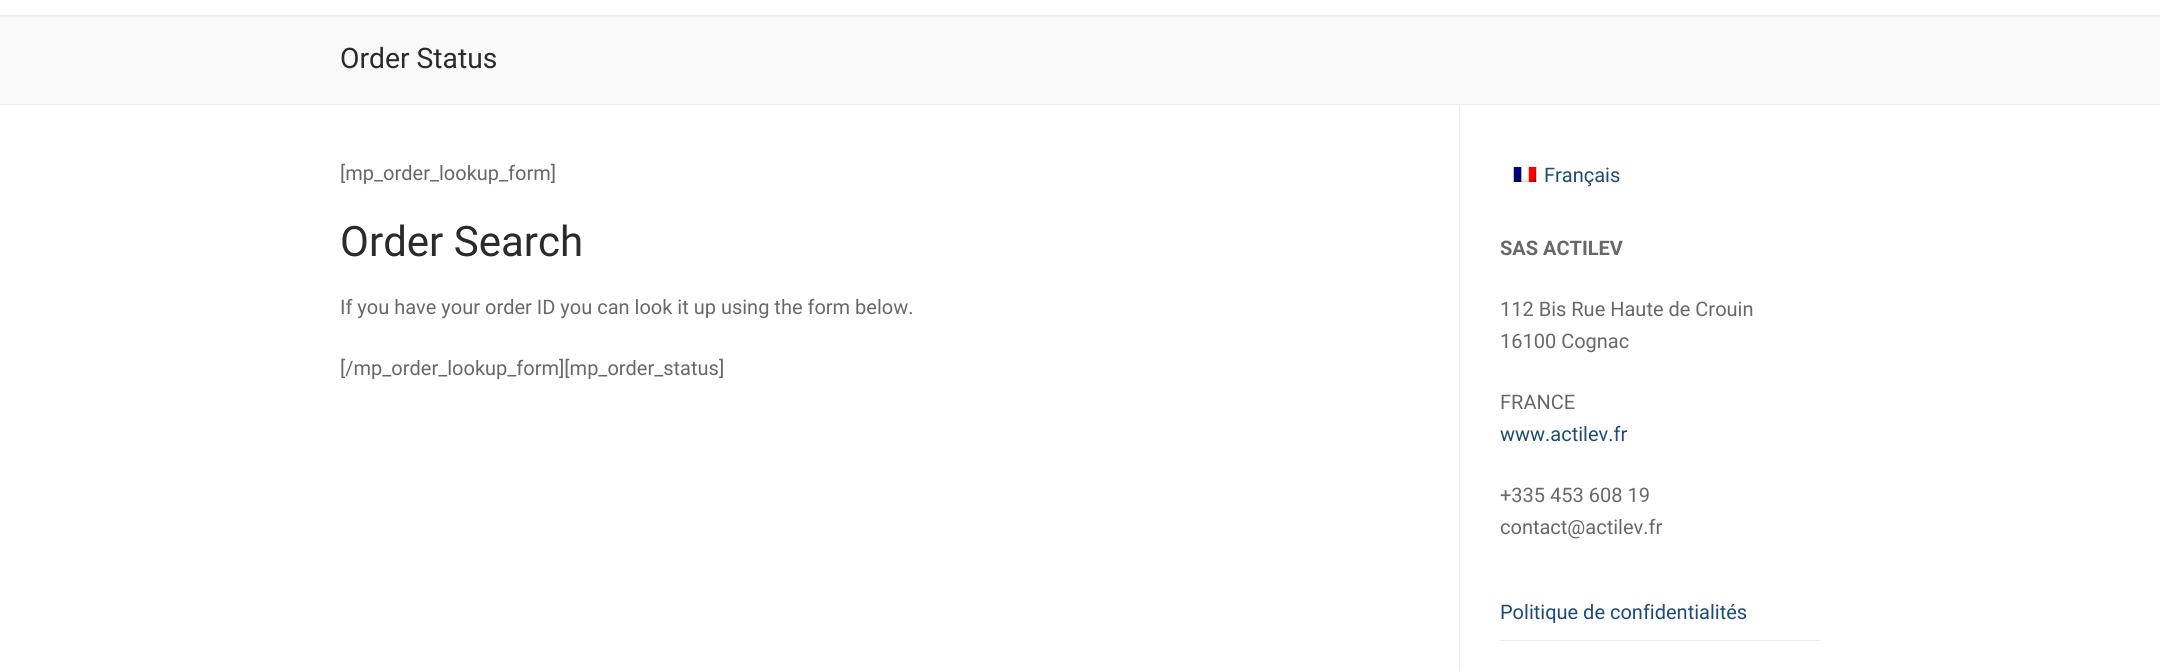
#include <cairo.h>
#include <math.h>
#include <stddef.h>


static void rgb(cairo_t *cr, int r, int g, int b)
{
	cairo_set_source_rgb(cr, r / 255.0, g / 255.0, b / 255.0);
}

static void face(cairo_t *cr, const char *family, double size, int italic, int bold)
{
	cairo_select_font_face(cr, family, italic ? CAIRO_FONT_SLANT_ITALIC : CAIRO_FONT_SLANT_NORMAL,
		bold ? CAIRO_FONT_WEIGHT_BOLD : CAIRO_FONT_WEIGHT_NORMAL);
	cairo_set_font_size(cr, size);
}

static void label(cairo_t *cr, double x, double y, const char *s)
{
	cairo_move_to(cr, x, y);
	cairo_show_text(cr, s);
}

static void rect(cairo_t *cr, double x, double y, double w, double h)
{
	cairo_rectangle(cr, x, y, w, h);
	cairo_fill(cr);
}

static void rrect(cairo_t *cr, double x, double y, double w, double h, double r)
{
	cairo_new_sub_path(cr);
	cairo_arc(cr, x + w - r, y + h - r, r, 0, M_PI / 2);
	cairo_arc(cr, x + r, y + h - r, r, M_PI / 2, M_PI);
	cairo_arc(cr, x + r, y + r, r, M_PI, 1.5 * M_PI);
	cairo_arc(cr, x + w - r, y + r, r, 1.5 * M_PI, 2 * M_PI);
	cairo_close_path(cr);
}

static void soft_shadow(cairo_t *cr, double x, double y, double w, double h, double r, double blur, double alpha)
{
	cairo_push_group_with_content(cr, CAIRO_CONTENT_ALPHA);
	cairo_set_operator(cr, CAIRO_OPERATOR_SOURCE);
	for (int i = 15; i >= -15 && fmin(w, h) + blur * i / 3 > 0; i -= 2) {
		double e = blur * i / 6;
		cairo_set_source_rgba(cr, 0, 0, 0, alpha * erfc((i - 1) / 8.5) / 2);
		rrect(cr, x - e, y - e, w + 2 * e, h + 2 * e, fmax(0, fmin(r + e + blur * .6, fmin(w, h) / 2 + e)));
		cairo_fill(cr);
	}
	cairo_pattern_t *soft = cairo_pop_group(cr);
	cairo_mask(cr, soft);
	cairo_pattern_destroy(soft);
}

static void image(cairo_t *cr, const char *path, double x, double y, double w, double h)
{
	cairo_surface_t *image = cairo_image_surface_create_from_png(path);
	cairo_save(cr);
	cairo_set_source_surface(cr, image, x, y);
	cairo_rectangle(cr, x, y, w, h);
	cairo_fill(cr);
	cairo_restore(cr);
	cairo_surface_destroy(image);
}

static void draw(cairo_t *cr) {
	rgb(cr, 255, 255, 255);
	cairo_paint(cr);
	rgb(cr, 249, 249, 249);
	rect(cr, 0, 15, 2160, 89);
	cairo_save(cr);
	cairo_rectangle(cr, 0, 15, 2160, 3);
	cairo_clip(cr);
	rgb(cr, 225, 229, 234);
	soft_shadow(cr, 0, -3, 2160, 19, 0, 1, 1);
	cairo_restore(cr);
	rgb(cr, 234, 236, 238);
	rect(cr, 0, 104, 2160, 1);
	face(cr, "Roboto", 28.25, 0, 0);
	rgb(cr, 43, 43, 43);
	label(cr, 340, 68, "Order Status");
	rgb(cr, 234, 236, 238);
	rect(cr, 1459, 105, 1, 566);
	face(cr, "Roboto", 20, 0, 0);
	rgb(cr, 104, 104, 104);
	label(cr, 340, 180, "[mp_order_lookup_form]");
	face(cr, "Roboto", 42, 0, 0);
	rgb(cr, 43, 43, 43);
	label(cr, 340, 256, "Order Search");
	face(cr, "Roboto", 20, 0, 0);
	rgb(cr, 104, 104, 104);
	label(cr, 340, 314, "If you have your order ID you can look it up using the form below.");
	label(cr, 340, 375, "[/mp_order_lookup_form][mp_order_status]");
	image(cr, "image0.png", 1513, 167, 24, 15);
	rgb(cr, 30, 75, 117);
	label(cr, 1544, 182, "Français");
	face(cr, "Roboto", 20, 0, 1);
	rgb(cr, 104, 104, 104);
	label(cr, 1500, 255, "SAS ACTILEV");
	face(cr, "Roboto", 20, 0, 0);
	label(cr, 1500, 316, "112 Bis Rue Haute de Crouin");
	label(cr, 1500, 348, "16100 Cognac");
	label(cr, 1500, 409, "FRANCE");
	rgb(cr, 30, 75, 117);
	label(cr, 1500, 441, "www.actilev.fr");
	rgb(cr, 104, 104, 104);
	label(cr, 1500, 502, "+335 453 608 19");
	label(cr, 1500, 534, "contact@actilev.fr");
	rgb(cr, 234, 236, 238);
	rect(cr, 1500, 640, 320, 1);
	rgb(cr, 30, 75, 117);
	label(cr, 1500, 619, "Politique de confidentialités");
}

int main(void) {
	cairo_surface_t *surface = cairo_image_surface_create(CAIRO_FORMAT_RGB24, 2160, 671);
	cairo_t *cr = cairo_create(surface);
	cairo_font_options_t *options = cairo_font_options_create();
	cairo_font_options_set_hint_metrics(options, CAIRO_HINT_METRICS_OFF);
	cairo_font_options_set_hint_style(options, CAIRO_HINT_STYLE_NONE);
	cairo_set_font_options(cr, options);
	cairo_set_miter_limit(cr, 4);
	draw(cr);
	cairo_surface_write_to_png(surface, "render.png");
	cairo_font_options_destroy(options);
	cairo_destroy(cr);
	cairo_surface_destroy(surface);
	return 0;
}
